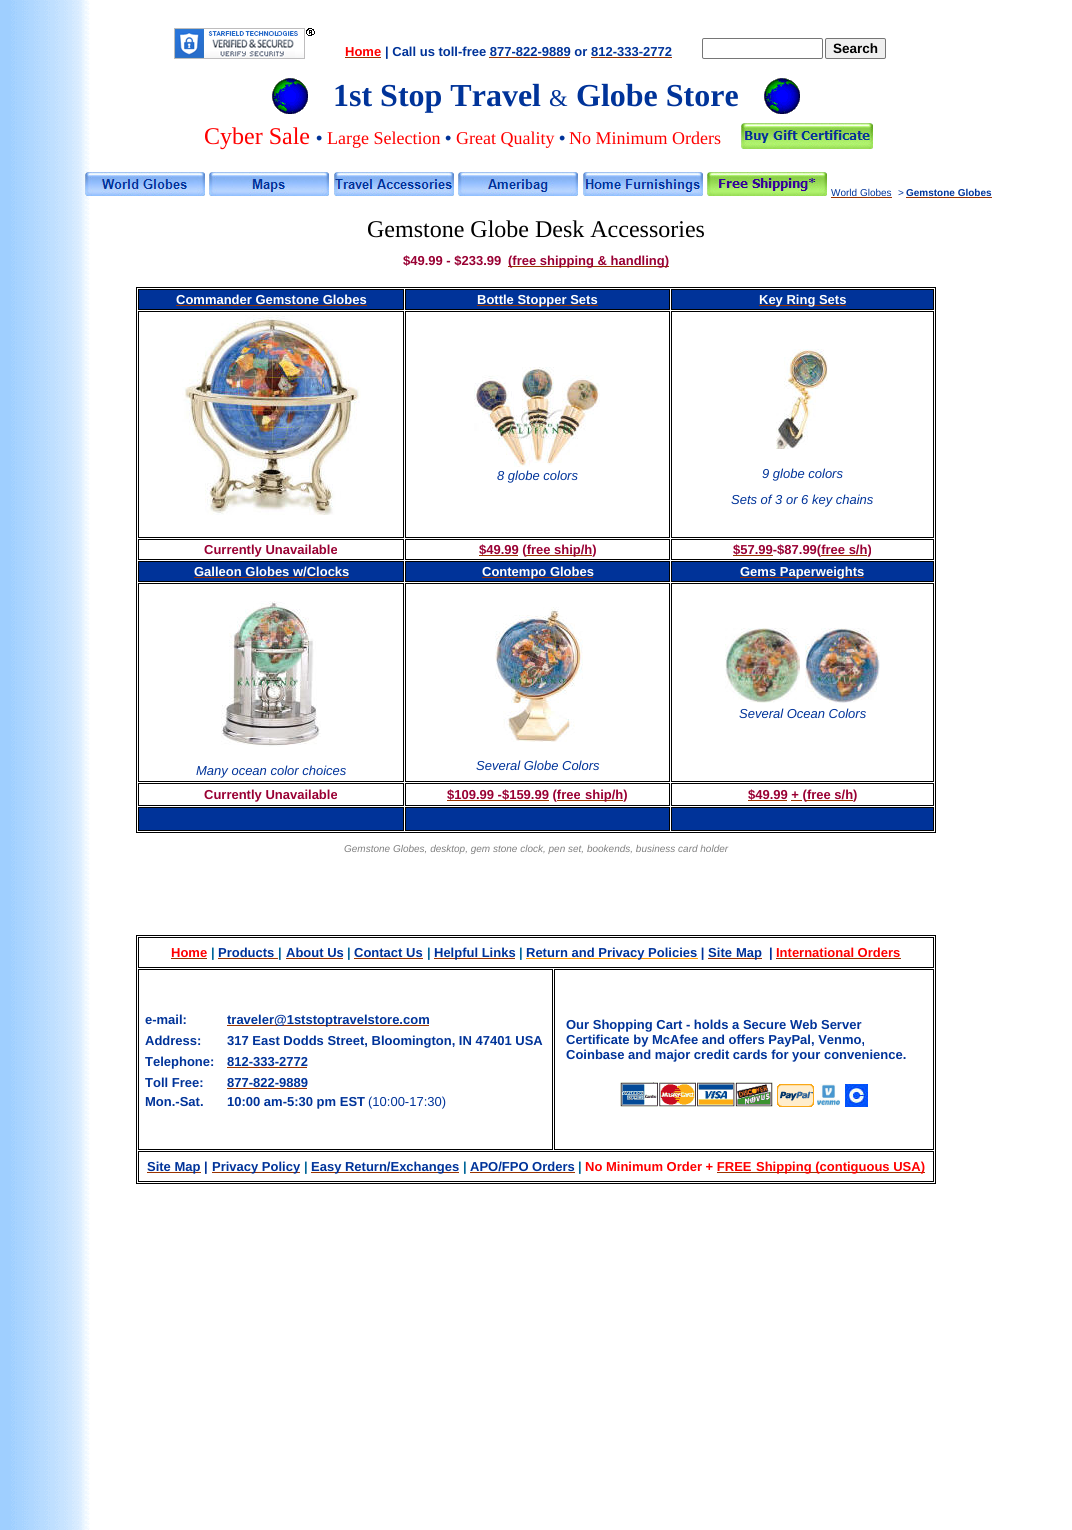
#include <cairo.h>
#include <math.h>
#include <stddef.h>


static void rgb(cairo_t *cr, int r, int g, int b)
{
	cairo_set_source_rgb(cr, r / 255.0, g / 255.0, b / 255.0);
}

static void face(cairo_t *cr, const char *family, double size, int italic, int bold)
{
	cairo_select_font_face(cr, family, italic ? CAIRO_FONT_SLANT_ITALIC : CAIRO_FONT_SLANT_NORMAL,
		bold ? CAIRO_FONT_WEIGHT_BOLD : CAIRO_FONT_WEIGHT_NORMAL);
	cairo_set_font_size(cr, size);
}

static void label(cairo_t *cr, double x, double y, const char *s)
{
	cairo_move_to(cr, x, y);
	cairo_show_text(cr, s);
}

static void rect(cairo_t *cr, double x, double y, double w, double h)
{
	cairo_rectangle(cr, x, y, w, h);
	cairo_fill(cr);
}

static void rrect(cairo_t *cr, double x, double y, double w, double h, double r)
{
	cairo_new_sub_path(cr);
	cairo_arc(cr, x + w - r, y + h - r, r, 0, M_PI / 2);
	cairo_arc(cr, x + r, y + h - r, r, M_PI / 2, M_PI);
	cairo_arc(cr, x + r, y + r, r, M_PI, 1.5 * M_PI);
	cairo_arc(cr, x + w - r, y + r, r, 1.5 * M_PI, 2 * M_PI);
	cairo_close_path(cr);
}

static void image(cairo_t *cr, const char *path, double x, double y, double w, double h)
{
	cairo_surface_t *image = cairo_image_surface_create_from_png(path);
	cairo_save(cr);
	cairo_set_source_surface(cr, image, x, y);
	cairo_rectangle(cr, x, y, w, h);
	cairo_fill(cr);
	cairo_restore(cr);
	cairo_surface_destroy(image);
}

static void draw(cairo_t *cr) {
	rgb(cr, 255, 255, 255);
	cairo_paint(cr);
	image(cr, "image0.png", 0, 0, 1072, 1530);
	image(cr, "image1.png", 174, 28, 141, 31);
	face(cr, "Liberation Sans", 13, 0, 1);
	rgb(cr, 255, 0, 0);
	label(cr, 345, 56, "Home");
	rgb(cr, 153, 51, 0);
	rect(cr, 345, 57, 36, 1);
	rgb(cr, 0, 51, 153);
	label(cr, 385, 56, "| Call us toll-free 877-822-9889 or 812-333-2772");
	rgb(cr, 153, 51, 0);
	rect(cr, 489, 57, 81, 1);
	rect(cr, 591, 57, 81, 1);
	rrect(cr, 702.5, 38.5, 120, 20, 1.5);
	rgb(cr, 118, 118, 118);
	cairo_set_line_width(cr, 1);
	cairo_stroke(cr);
	rgb(cr, 239, 239, 239);
	rrect(cr, 825.5, 38.5, 60, 20, 1.5);
	cairo_fill_preserve(cr);
	rgb(cr, 118, 118, 118);
	cairo_stroke(cr);
	face(cr, "Liberation Sans", 13.5, 0, 1);
	rgb(cr, 0, 0, 0);
	label(cr, 833, 53, "Search");
	image(cr, "image2.png", 272, 78, 36, 36);
	face(cr, "Liberation Serif", 32, 0, 1);
	rgb(cr, 0, 51, 153);
	label(cr, 333, 106, "1st Stop Travel");
	face(cr, "Liberation Serif", 24, 0, 0);
	label(cr, 549, 106, "&");
	face(cr, "Liberation Serif", 32, 0, 1);
	label(cr, 576, 106, "Globe Store");
	image(cr, "image2.png", 764, 78, 36, 36);
	face(cr, "Liberation Serif", 24, 0, 0);
	rgb(cr, 255, 0, 0);
	label(cr, 204, 144, "Cyber Sale");
	face(cr, "Liberation Sans", 18, 0, 0);
	rgb(cr, 0, 51, 153);
	label(cr, 316, 144, "•");
	face(cr, "Liberation Serif", 18, 0, 0);
	rgb(cr, 255, 0, 0);
	label(cr, 327, 144, "Large Selection");
	face(cr, "Liberation Sans", 18, 0, 0);
	rgb(cr, 0, 51, 153);
	label(cr, 445, 144, "•");
	face(cr, "Liberation Serif", 18, 0, 0);
	rgb(cr, 255, 0, 0);
	label(cr, 456, 144, "Great Quality");
	face(cr, "Liberation Sans", 18, 0, 0);
	rgb(cr, 0, 51, 153);
	label(cr, 559, 144, "•");
	face(cr, "Liberation Serif", 18, 0, 0);
	rgb(cr, 255, 0, 0);
	label(cr, 569, 144, "No Minimum Orders");
	image(cr, "image3.png", 741, 123, 132, 26);
	image(cr, "image4.png", 85, 172, 120, 24);
	image(cr, "image5.png", 209, 172, 120, 24);
	image(cr, "image6.png", 334, 172, 120, 24);
	image(cr, "image7.png", 458, 172, 120, 24);
	image(cr, "image8.png", 583, 172, 120, 24);
	image(cr, "image9.png", 707, 172, 120, 24);
	face(cr, "Liberation Sans", 10, 0, 0);
	rgb(cr, 0, 51, 153);
	label(cr, 831, 196, "World Globes");
	rgb(cr, 153, 51, 0);
	rect(cr, 831, 197, 61, 1);
	rgb(cr, 0, 51, 153);
	label(cr, 898, 196, ">");
	face(cr, "Liberation Sans", 10, 0, 1);
	label(cr, 906, 196, "Gemstone Globes");
	rgb(cr, 153, 51, 0);
	rect(cr, 906, 197, 86, 1);
	face(cr, "Liberation Serif", 24, 0, 0);
	rgb(cr, 0, 0, 0);
	label(cr, 367, 237, "Gemstone Globe Desk Accessories");
	face(cr, "Liberation Sans", 13, 0, 1);
	rgb(cr, 153, 0, 51);
	label(cr, 403, 265, "$49.99 - $233.99");
	rgb(cr, 153, 51, 0);
	rect(cr, 508, 266, 161, 1);
	rgb(cr, 153, 0, 51);
	label(cr, 508, 265, "(free shipping & handling)");
	cairo_rectangle(cr, 136.5, 287.5, 799, 545);
	rgb(cr, 0, 0, 0);
	cairo_stroke(cr);
	rgb(cr, 0, 51, 153);
	cairo_rectangle(cr, 138.5, 289.5, 265, 20);
	cairo_fill_preserve(cr);
	rgb(cr, 0, 0, 0);
	cairo_stroke(cr);
	rgb(cr, 255, 255, 255);
	label(cr, 176, 304, "Commander Gemstone Globes");
	rgb(cr, 153, 51, 0);
	rect(cr, 176, 305, 191, 1);
	rgb(cr, 0, 51, 153);
	cairo_rectangle(cr, 405.5, 289.5, 264, 20);
	cairo_fill_preserve(cr);
	rgb(cr, 0, 0, 0);
	cairo_stroke(cr);
	rgb(cr, 153, 51, 0);
	rect(cr, 477, 305, 121, 1);
	rgb(cr, 255, 255, 255);
	label(cr, 477, 304, "Bottle Stopper Sets");
	rgb(cr, 0, 51, 153);
	cairo_rectangle(cr, 671.5, 289.5, 262, 20);
	cairo_fill_preserve(cr);
	rgb(cr, 0, 0, 0);
	cairo_stroke(cr);
	rgb(cr, 153, 51, 0);
	rect(cr, 759, 305, 87, 1);
	rgb(cr, 255, 255, 255);
	label(cr, 759, 304, "Key Ring Sets");
	cairo_rectangle(cr, 138.5, 311.5, 265, 226);
	rgb(cr, 0, 0, 0);
	cairo_stroke(cr);
	image(cr, "image10.png", 182, 315, 179, 200);
	cairo_rectangle(cr, 405.5, 311.5, 264, 226);
	cairo_stroke(cr);
	image(cr, "image11.png", 474, 367, 126, 100);
	face(cr, "Liberation Sans", 13, 1, 0);
	rgb(cr, 0, 51, 153);
	label(cr, 497, 480, "8 globe colors");
	cairo_rectangle(cr, 671.5, 311.5, 262, 226);
	rgb(cr, 0, 0, 0);
	cairo_stroke(cr);
	image(cr, "image12.png", 776, 349, 52, 100);
	rgb(cr, 0, 51, 153);
	label(cr, 762, 478, "9 globe colors");
	label(cr, 731, 504, "Sets of 3 or 6 key chains");
	cairo_rectangle(cr, 138.5, 539.5, 265, 20);
	rgb(cr, 0, 0, 0);
	cairo_stroke(cr);
	face(cr, "Liberation Sans", 13, 0, 1);
	rgb(cr, 153, 0, 51);
	label(cr, 204, 554, "Currently Unavailable");
	cairo_rectangle(cr, 405.5, 539.5, 264, 20);
	rgb(cr, 0, 0, 0);
	cairo_stroke(cr);
	rgb(cr, 153, 51, 0);
	rect(cr, 479, 555, 39, 1);
	rgb(cr, 153, 0, 51);
	label(cr, 479, 554, "$49.99 (free");
	rgb(cr, 153, 51, 0);
	rect(cr, 526, 555, 66, 1);
	rgb(cr, 153, 0, 51);
	label(cr, 554, 554, "ship/h)");
	cairo_rectangle(cr, 671.5, 539.5, 262, 20);
	rgb(cr, 0, 0, 0);
	cairo_stroke(cr);
	rgb(cr, 153, 51, 0);
	rect(cr, 733, 555, 40, 1);
	rgb(cr, 153, 0, 51);
	label(cr, 733, 554, "$57.99-$87.99(free s/h)");
	rgb(cr, 153, 51, 0);
	rect(cr, 821, 555, 46, 1);
	rgb(cr, 0, 51, 153);
	cairo_rectangle(cr, 138.5, 561.5, 265, 20);
	cairo_fill_preserve(cr);
	rgb(cr, 0, 0, 0);
	cairo_stroke(cr);
	rgb(cr, 255, 255, 255);
	label(cr, 194, 576, "Galleon Globes w/Clocks");
	rgb(cr, 153, 51, 0);
	rect(cr, 194, 577, 155, 1);
	rgb(cr, 0, 51, 153);
	cairo_rectangle(cr, 405.5, 561.5, 264, 20);
	cairo_fill_preserve(cr);
	rgb(cr, 0, 0, 0);
	cairo_stroke(cr);
	rgb(cr, 153, 51, 0);
	rect(cr, 482, 577, 111, 1);
	rgb(cr, 255, 255, 255);
	label(cr, 482, 576, "Contempo Globes");
	rgb(cr, 0, 51, 153);
	cairo_rectangle(cr, 671.5, 561.5, 262, 20);
	cairo_fill_preserve(cr);
	rgb(cr, 0, 0, 0);
	cairo_stroke(cr);
	rgb(cr, 153, 51, 0);
	rect(cr, 740, 577, 124, 1);
	rgb(cr, 255, 255, 255);
	label(cr, 740, 576, "Gems Paperweights");
	cairo_rectangle(cr, 671.5, 583.5, 262, 198);
	rgb(cr, 0, 0, 0);
	cairo_stroke(cr);
	image(cr, "image13.png", 725, 628, 75, 75);
	image(cr, "image14.png", 805, 628, 75, 75);
	face(cr, "Liberation Sans", 13, 1, 0);
	rgb(cr, 0, 51, 153);
	label(cr, 739, 718, "Several Ocean Colors");
	cairo_rectangle(cr, 138.5, 583.5, 265, 198);
	rgb(cr, 0, 0, 0);
	cairo_stroke(cr);
	image(cr, "image15.png", 221, 601, 100, 146);
	rgb(cr, 0, 51, 153);
	label(cr, 196, 775, "Many ocean color choices");
	cairo_rectangle(cr, 405.5, 583.5, 264, 198);
	rgb(cr, 0, 0, 0);
	cairo_stroke(cr);
	image(cr, "image16.png", 495, 607, 88, 135);
	rgb(cr, 0, 51, 153);
	label(cr, 476, 770, "Several Globe Colors");
	cairo_rectangle(cr, 138.5, 783.5, 265, 22);
	rgb(cr, 0, 0, 0);
	cairo_stroke(cr);
	face(cr, "Liberation Sans", 13, 0, 1);
	rgb(cr, 153, 0, 51);
	label(cr, 204, 799, "Currently Unavailable");
	cairo_rectangle(cr, 405.5, 783.5, 264, 22);
	rgb(cr, 0, 0, 0);
	cairo_stroke(cr);
	rgb(cr, 153, 51, 0);
	rect(cr, 447, 800, 102, 1);
	rgb(cr, 153, 0, 51);
	label(cr, 447, 799, "$109.99 -$159.99 (free");
	rgb(cr, 153, 51, 0);
	rect(cr, 557, 800, 66, 1);
	rgb(cr, 153, 0, 51);
	label(cr, 585, 799, "ship/h)");
	cairo_rectangle(cr, 671.5, 783.5, 262, 22);
	rgb(cr, 0, 0, 0);
	cairo_stroke(cr);
	rgb(cr, 153, 51, 0);
	rect(cr, 748, 800, 39, 1);
	rgb(cr, 153, 0, 51);
	label(cr, 748, 799, "$49.99 + (free s/h");
	rgb(cr, 153, 51, 0);
	rect(cr, 791, 800, 11, 1);
	rect(cr, 806, 800, 47, 1);
	rgb(cr, 153, 0, 51);
	label(cr, 853, 799, ")");
	rgb(cr, 0, 51, 153);
	cairo_rectangle(cr, 138.5, 807.5, 265, 23);
	cairo_fill_preserve(cr);
	rgb(cr, 0, 0, 0);
	cairo_stroke(cr);
	rgb(cr, 0, 51, 153);
	cairo_rectangle(cr, 405.5, 807.5, 264, 23);
	cairo_fill_preserve(cr);
	rgb(cr, 0, 0, 0);
	cairo_stroke(cr);
	rgb(cr, 0, 51, 153);
	cairo_rectangle(cr, 671.5, 807.5, 262, 23);
	cairo_fill_preserve(cr);
	rgb(cr, 0, 0, 0);
	cairo_stroke(cr);
	face(cr, "Liberation Sans", 10, 1, 0);
	rgb(cr, 128, 128, 128);
	label(cr, 344, 852, "Gemstone Globes, desktop, gem stone clock, pen set, bookends, business card holder");
	cairo_rectangle(cr, 136.5, 935.5, 799, 248);
	rgb(cr, 0, 0, 0);
	cairo_stroke(cr);
	cairo_rectangle(cr, 138.5, 937.5, 795, 30);
	cairo_stroke(cr);
	face(cr, "Liberation Sans", 13, 0, 1);
	rgb(cr, 255, 0, 0);
	label(cr, 171, 957, "Home");
	rgb(cr, 153, 51, 0);
	rect(cr, 171, 958, 36, 1);
	rgb(cr, 0, 102, 153);
	label(cr, 211, 957, "|");
	rgb(cr, 0, 51, 153);
	label(cr, 218, 957, "Products");
	rgb(cr, 0, 102, 153);
	label(cr, 278, 957, "|");
	rgb(cr, 153, 51, 0);
	rect(cr, 218, 958, 60, 1);
	rgb(cr, 0, 51, 153);
	label(cr, 286, 957, "About Us");
	rgb(cr, 153, 51, 0);
	rect(cr, 286, 958, 57, 1);
	rgb(cr, 0, 102, 153);
	label(cr, 347, 957, "|");
	rgb(cr, 0, 51, 153);
	label(cr, 354, 957, "Contact Us");
	rgb(cr, 153, 51, 0);
	rect(cr, 354, 958, 69, 1);
	rgb(cr, 0, 102, 153);
	label(cr, 427, 957, "|");
	rgb(cr, 153, 51, 0);
	rect(cr, 434, 958, 81, 1);
	rgb(cr, 0, 51, 153);
	label(cr, 434, 957, "Helpful Links");
	rgb(cr, 0, 102, 153);
	label(cr, 519, 957, "|");
	rgb(cr, 255, 153, 0);
	rect(cr, 526, 958, 172, 1);
	rgb(cr, 0, 51, 153);
	label(cr, 526, 957, "Return and Privacy Policies | Site");
	rgb(cr, 153, 51, 0);
	rect(cr, 708, 958, 54, 1);
	rgb(cr, 0, 51, 153);
	label(cr, 736, 957, "Map");
	label(cr, 769, 957, "|");
	rgb(cr, 255, 0, 0);
	label(cr, 776, 957, "International Orders");
	rgb(cr, 153, 51, 0);
	rect(cr, 776, 958, 125, 1);
	cairo_rectangle(cr, 138.5, 969.5, 414, 180);
	rgb(cr, 0, 0, 0);
	cairo_stroke(cr);
	rgb(cr, 0, 51, 153);
	label(cr, 145, 1024, "e-mail:");
	rgb(cr, 153, 51, 0);
	rect(cr, 227, 1025, 202, 1);
	rgb(cr, 0, 51, 153);
	label(cr, 227, 1024, "traveler@1ststoptravelstore.com");
	label(cr, 145, 1045, "Address:");
	label(cr, 227, 1045, "317 East Dodds Street, Bloomington, IN 47401 USA");
	label(cr, 145, 1066, "Telephone:");
	label(cr, 227, 1066, "812-333-2772");
	rgb(cr, 153, 51, 0);
	rect(cr, 227, 1067, 80, 1);
	rgb(cr, 0, 51, 153);
	label(cr, 145, 1087, "Toll Free:");
	label(cr, 227, 1087, "877-822-9889");
	rgb(cr, 153, 51, 0);
	rect(cr, 227, 1088, 80, 1);
	rgb(cr, 0, 51, 153);
	label(cr, 145, 1106, "Mon.-Sat.");
	label(cr, 227, 1106, "10:00 am-5:30 pm EST");
	face(cr, "Liberation Sans", 13, 0, 0);
	label(cr, 368, 1106, "(10:00-17:30)");
	cairo_rectangle(cr, 554.5, 969.5, 379, 180);
	rgb(cr, 0, 0, 0);
	cairo_stroke(cr);
	face(cr, "Liberation Sans", 13, 0, 1);
	rgb(cr, 0, 51, 153);
	label(cr, 566, 1029, "Our Shopping Cart - holds a Secure Web Server");
	label(cr, 566, 1044, "Certificate by McAfee and offers PayPal, Venmo,");
	label(cr, 566, 1059, "Coinbase and major credit cards for your convenience.");
	image(cr, "image17.png", 620, 1082, 153, 25);
	image(cr, "image18.png", 777, 1084, 37, 23);
	image(cr, "image19.png", 817, 1084, 23, 22);
	image(cr, "image20.png", 845, 1084, 23, 23);
	cairo_rectangle(cr, 138.5, 1151.5, 795, 30);
	rgb(cr, 0, 0, 0);
	cairo_stroke(cr);
	rgb(cr, 153, 51, 0);
	rect(cr, 147, 1172, 54, 1);
	rgb(cr, 0, 51, 153);
	label(cr, 147, 1171, "Site Map |");
	rgb(cr, 153, 51, 0);
	rect(cr, 212, 1172, 88, 1);
	rgb(cr, 0, 51, 153);
	label(cr, 212, 1171, "Privacy Policy");
	rgb(cr, 0, 102, 153);
	label(cr, 304, 1171, "|");
	rgb(cr, 153, 51, 0);
	rect(cr, 311, 1172, 148, 1);
	rgb(cr, 0, 51, 153);
	label(cr, 311, 1171, "Easy Return/Exchanges");
	rgb(cr, 0, 102, 153);
	label(cr, 463, 1171, "|");
	rgb(cr, 0, 51, 153);
	label(cr, 470, 1171, "APO/FPO Orders");
	rgb(cr, 153, 51, 0);
	rect(cr, 470, 1172, 105, 1);
	rgb(cr, 0, 102, 153);
	label(cr, 578, 1171, "|");
	rgb(cr, 255, 0, 0);
	label(cr, 585, 1171, "No Minimum Order + FREE");
	rgb(cr, 153, 51, 0);
	rect(cr, 717, 1172, 208, 1);
	rgb(cr, 255, 0, 0);
	label(cr, 756, 1171, "Shipping (contiguous USA)");
}

int main(void) {
	cairo_surface_t *surface = cairo_image_surface_create(CAIRO_FORMAT_RGB24, 1072, 1530);
	cairo_t *cr = cairo_create(surface);
	cairo_font_options_t *options = cairo_font_options_create();
	cairo_font_options_set_hint_metrics(options, CAIRO_HINT_METRICS_OFF);
	cairo_font_options_set_hint_style(options, CAIRO_HINT_STYLE_NONE);
	cairo_set_font_options(cr, options);
	cairo_set_miter_limit(cr, 4);
	draw(cr);
	cairo_surface_write_to_png(surface, "render.png");
	cairo_font_options_destroy(options);
	cairo_destroy(cr);
	cairo_surface_destroy(surface);
	return 0;
}
